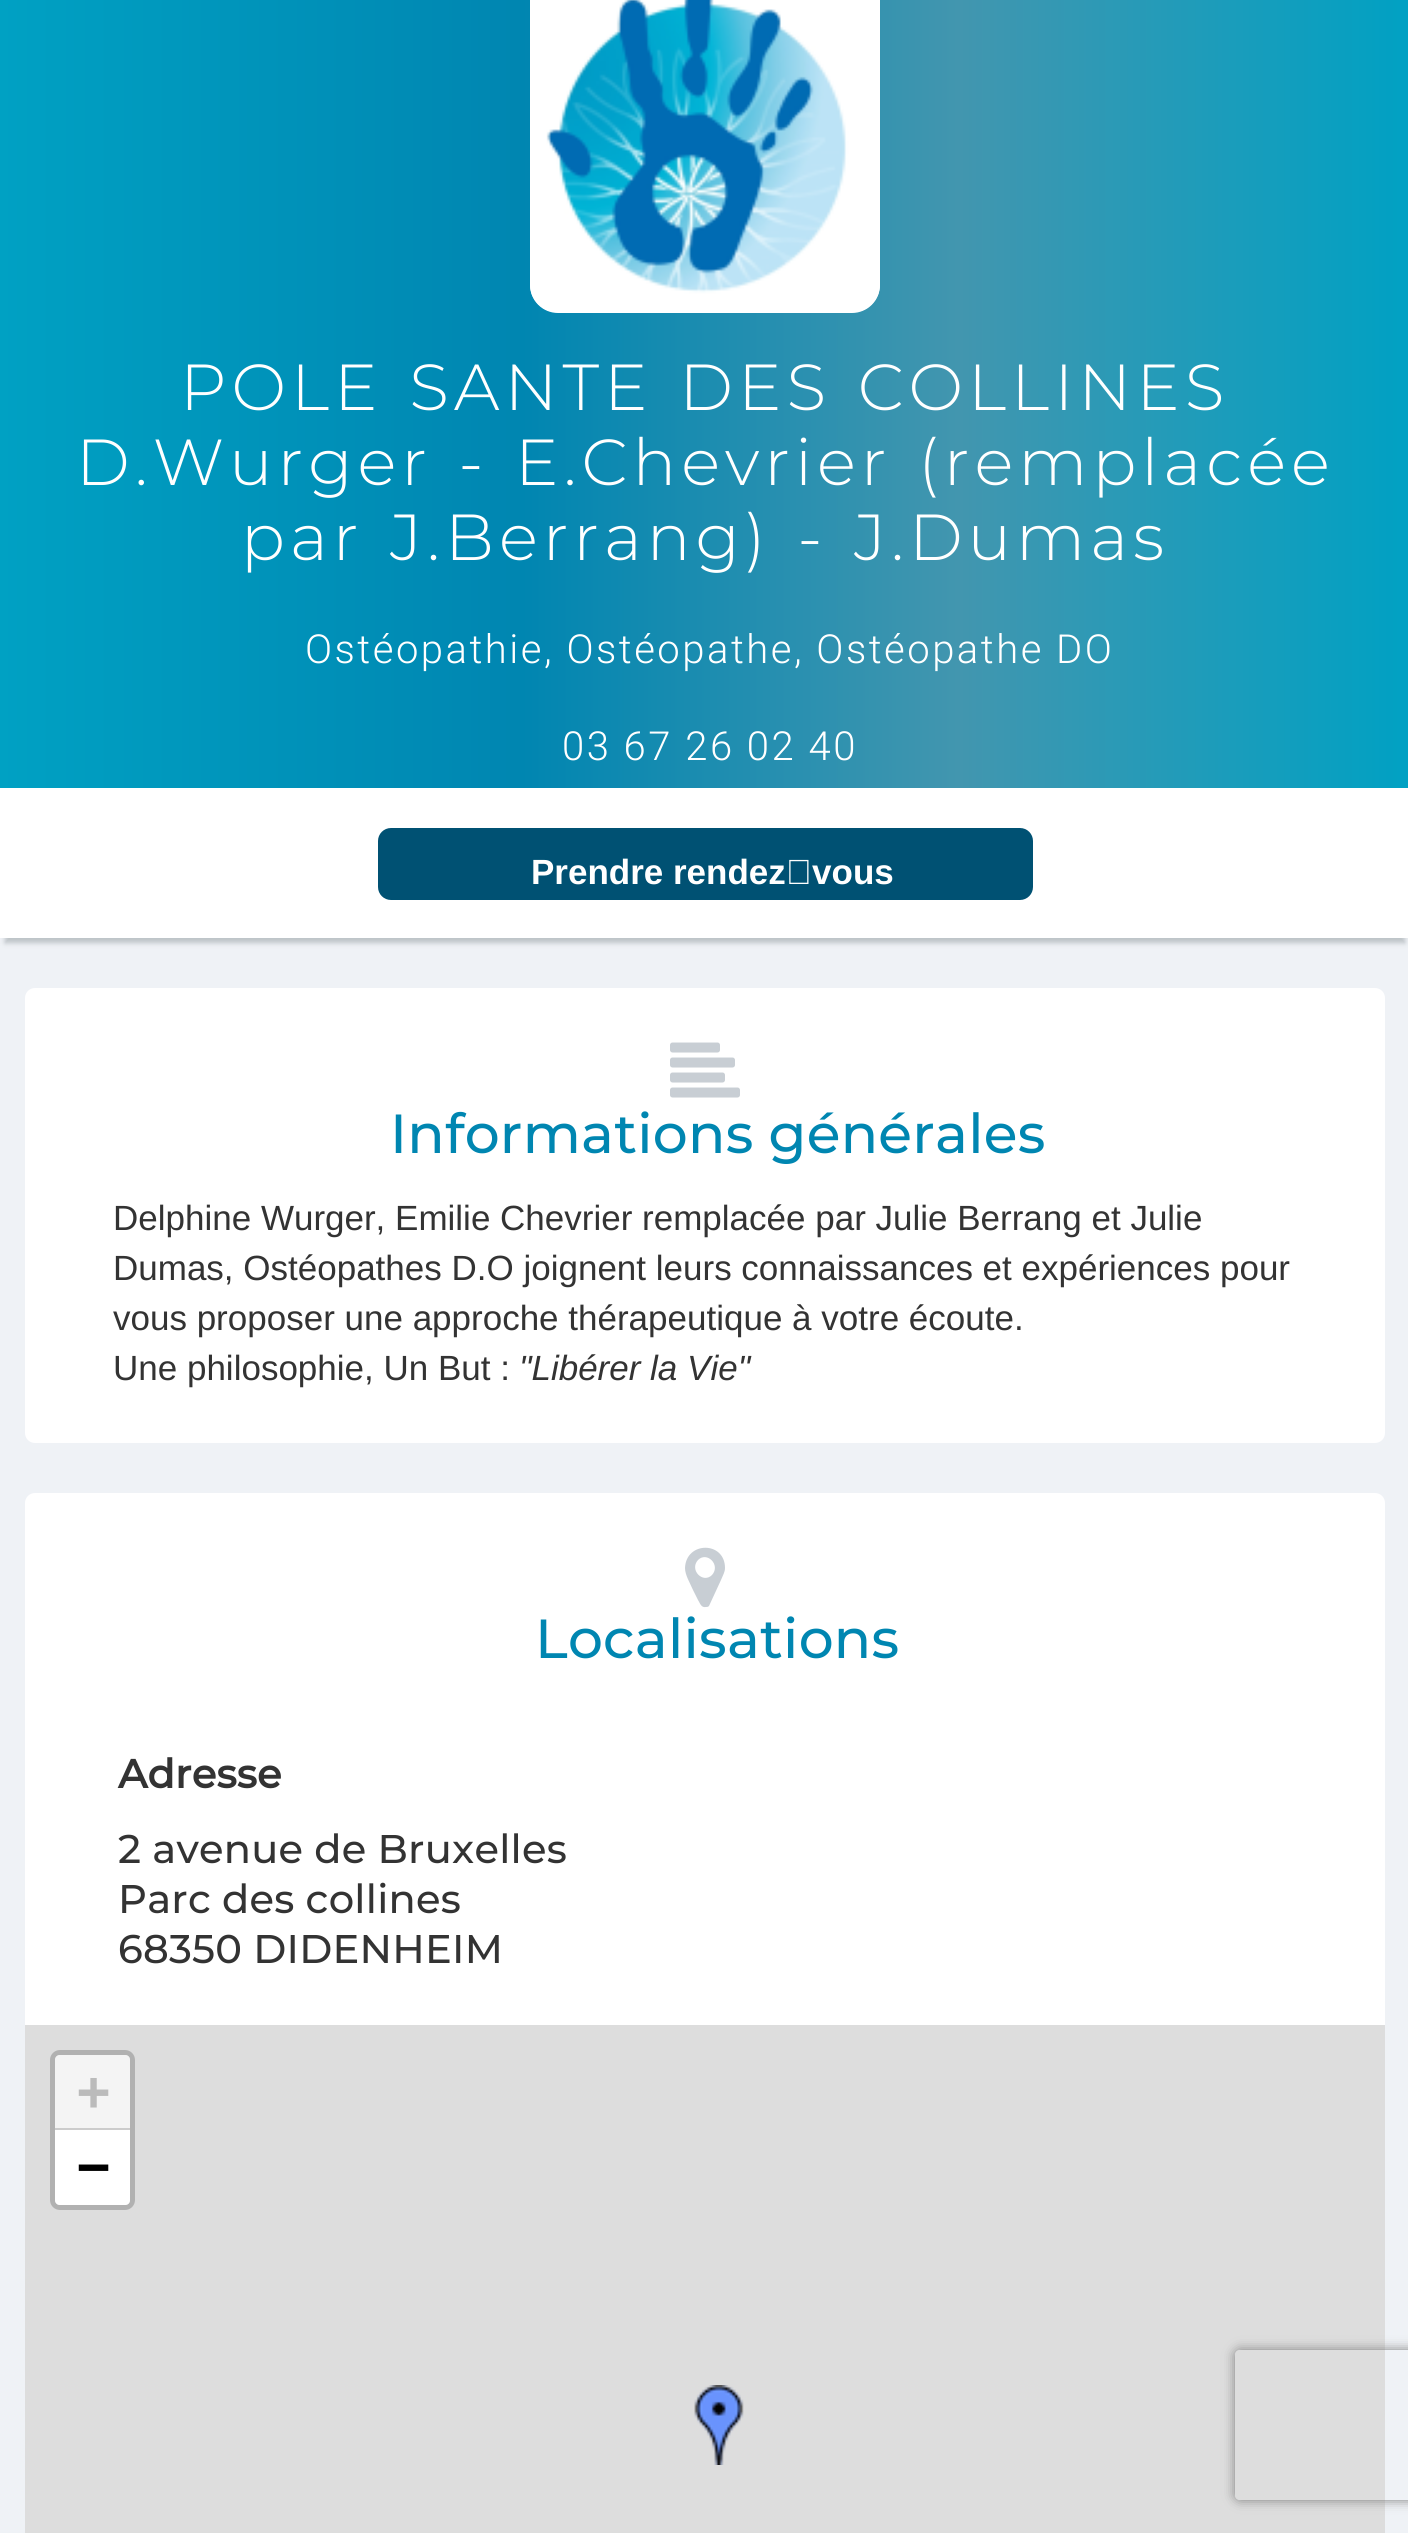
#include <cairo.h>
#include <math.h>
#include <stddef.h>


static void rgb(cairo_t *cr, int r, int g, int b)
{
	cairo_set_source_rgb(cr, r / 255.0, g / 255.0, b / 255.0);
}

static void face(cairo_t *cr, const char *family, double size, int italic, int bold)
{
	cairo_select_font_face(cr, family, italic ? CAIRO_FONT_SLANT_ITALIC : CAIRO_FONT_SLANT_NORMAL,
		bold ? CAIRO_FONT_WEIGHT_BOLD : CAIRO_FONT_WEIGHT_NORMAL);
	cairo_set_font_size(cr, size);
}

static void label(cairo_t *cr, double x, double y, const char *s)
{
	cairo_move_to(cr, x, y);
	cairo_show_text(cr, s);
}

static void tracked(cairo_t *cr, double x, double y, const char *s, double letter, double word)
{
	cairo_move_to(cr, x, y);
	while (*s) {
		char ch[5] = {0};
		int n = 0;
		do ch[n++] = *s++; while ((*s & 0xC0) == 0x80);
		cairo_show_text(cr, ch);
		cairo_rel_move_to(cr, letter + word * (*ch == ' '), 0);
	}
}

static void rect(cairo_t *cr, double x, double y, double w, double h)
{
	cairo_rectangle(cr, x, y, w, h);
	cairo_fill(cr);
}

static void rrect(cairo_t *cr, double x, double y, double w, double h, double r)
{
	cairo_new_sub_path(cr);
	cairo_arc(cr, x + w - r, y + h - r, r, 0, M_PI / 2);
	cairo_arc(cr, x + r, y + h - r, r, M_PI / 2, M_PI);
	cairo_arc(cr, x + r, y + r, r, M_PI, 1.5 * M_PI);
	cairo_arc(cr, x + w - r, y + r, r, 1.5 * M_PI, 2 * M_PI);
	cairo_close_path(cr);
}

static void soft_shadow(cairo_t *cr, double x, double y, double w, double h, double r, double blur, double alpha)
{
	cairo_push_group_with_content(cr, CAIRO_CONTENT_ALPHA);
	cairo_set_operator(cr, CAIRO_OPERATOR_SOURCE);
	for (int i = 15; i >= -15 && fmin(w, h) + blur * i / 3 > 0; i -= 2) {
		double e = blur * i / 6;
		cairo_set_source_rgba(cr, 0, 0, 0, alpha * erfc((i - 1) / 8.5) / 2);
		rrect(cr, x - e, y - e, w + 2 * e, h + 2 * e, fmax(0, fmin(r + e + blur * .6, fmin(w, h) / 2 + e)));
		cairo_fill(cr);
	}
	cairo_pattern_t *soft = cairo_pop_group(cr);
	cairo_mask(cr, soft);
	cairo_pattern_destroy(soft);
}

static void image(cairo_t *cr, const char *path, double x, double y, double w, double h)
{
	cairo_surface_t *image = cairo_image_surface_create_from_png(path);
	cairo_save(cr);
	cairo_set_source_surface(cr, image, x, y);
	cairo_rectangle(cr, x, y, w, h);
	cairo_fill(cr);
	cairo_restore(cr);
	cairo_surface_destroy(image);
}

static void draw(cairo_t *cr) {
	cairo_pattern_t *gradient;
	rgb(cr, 239, 242, 246);
	cairo_paint(cr);
	gradient = cairo_pattern_create_linear(0, 350, 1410, 350);
	cairo_pattern_add_color_stop_rgba(gradient, 0, 0, 0.631, 0.765, 1);
	cairo_pattern_add_color_stop_rgba(gradient, 0.37, 0, 0.525, 0.694, 1);
	cairo_pattern_add_color_stop_rgba(gradient, 0.68, 0.259, 0.588, 0.686, 1);
	cairo_pattern_add_color_stop_rgba(gradient, 1, 0, 0.631, 0.765, 1);
	cairo_set_source(cr, gradient);
	cairo_pattern_destroy(gradient);
	rect(cr, 0, 0, 1408, 788);
	rgb(cr, 255, 255, 255);
	rrect(cr, 530, -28, 350, 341, 28);
	cairo_fill(cr);
	image(cr, "image0.png", 530, 0, 350, 311);
	face(cr, "Montserrat Light", 65, 0, 0);
	tracked(cr, 180, 410, "POLE SANTE DES COLLINES", 5, 5);
	tracked(cr, 76, 485, "D.Wurger - E.Chevrier (remplacée", 5, 5);
	tracked(cr, 241, 560, "par J.Berrang) - J.Dumas", 5, 5);
	face(cr, "Roboto Light", 40, 0, 0);
	tracked(cr, 305, 663, "Ostéopathie, Ostéopathe, Ostéopathe DO", 2.5, 0);
	tracked(cr, 562, 760, "03 67 26 02 40", 2.5, 0);
	rgb(cr, 189, 195, 199);
	soft_shadow(cr, 5, 803, 1400, 140, 0, 2.5, 1);
	rgb(cr, 255, 255, 255);
	rect(cr, 0, 788, 1408, 150);
	rgb(cr, 0, 81, 115);
	rrect(cr, 378, 828, 655, 72, 13);
	cairo_fill(cr);
	face(cr, "Liberation Sans", 35, 0, 1);
	rgb(cr, 255, 255, 255);
	label(cr, 531, 884, "Prendre rendez‑vous");
	rrect(cr, 25, 988, 1360, 455, 10);
	cairo_fill(cr);
	image(cr, "image1.png", 670, 1042, 70, 56);
	face(cr, "Montserrat Medium", 55, 0, 0);
	rgb(cr, 0, 134, 177);
	tracked(cr, 390, 1153, "Informations générales", 0.25, 0);
	face(cr, "Liberation Sans", 35, 0, 0);
	rgb(cr, 51, 51, 51);
	label(cr, 113, 1230, "Delphine Wurger, Emilie Chevrier remplacée par Julie Berrang et Julie");
	label(cr, 113, 1280, "Dumas, Ostéopathes D.O joignent leurs connaissances et expériences pour");
	label(cr, 113, 1330, "vous proposer une approche thérapeutique à votre écoute.");
	label(cr, 113, 1380, "Une philosophie, Un But :");
	face(cr, "Liberation Sans", 35, 1, 0);
	label(cr, 519, 1380, "\"Libérer la Vie\"");
	rgb(cr, 255, 255, 255);
	rrect(cr, 25, 1493, 1360, 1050, 10);
	cairo_fill(cr);
	rgb(cr, 200, 206, 212);
	cairo_new_path(cr);
	cairo_move_to(cr, 712, 1575);
	cairo_curve_to(cr, 721, 1565, 707, 1551, 698, 1560);
	cairo_curve_to(cr, 689, 1570, 703, 1584, 712, 1575);
	cairo_close_path(cr);
	cairo_move_to(cr, 725, 1568);
	cairo_curve_to(cr, 725, 1572, 723, 1575, 721, 1580);
	cairo_line_to(cr, 709, 1606);
	cairo_curve_to(cr, 708, 1607, 707, 1607, 706, 1607);
	cairo_curve_to(cr, 701, 1608, 700, 1603, 698, 1600);
	cairo_line_to(cr, 693, 1590);
	cairo_curve_to(cr, 690, 1583, 685, 1575, 685, 1568);
	cairo_curve_to(cr, 686, 1541, 725, 1541, 725, 1568);
	cairo_close_path(cr);
	cairo_fill(cr);
	face(cr, "Montserrat Medium", 55, 0, 0);
	rgb(cr, 0, 134, 177);
	tracked(cr, 535, 1658, "Localisations", 0.25, 0);
	face(cr, "Montserrat", 40, 0, 1);
	rgb(cr, 51, 51, 51);
	tracked(cr, 118, 1788, "Adresse", 0.25, 0);
	face(cr, "Montserrat Medium", 40, 0, 0);
	tracked(cr, 118, 1863, "2 avenue de Bruxelles", 0.25, 0);
	tracked(cr, 118, 1913, "Parc des collines", 0.25, 0);
	tracked(cr, 118, 1963, "68350 DIDENHEIM", 0.25, 0);
	rgb(cr, 221, 221, 221);
	rect(cr, 25, 2025, 1360, 508);
	rrect(cr, 52.5, 2052.5, 80, 155, 7.5);
	rgb(cr, 177, 177, 177);
	cairo_set_line_width(cr, 5);
	cairo_stroke(cr);
	rgb(cr, 244, 244, 244);
	cairo_new_path(cr);
	cairo_move_to(cr, 60, 2055);
	cairo_line_to(cr, 125, 2055);
	cairo_curve_to(cr, 128, 2055, 130, 2057, 130, 2060);
	cairo_line_to(cr, 130, 2130);
	cairo_line_to(cr, 55, 2130);
	cairo_line_to(cr, 55, 2060);
	cairo_curve_to(cr, 55, 2057, 57, 2055, 60, 2055);
	cairo_close_path(cr);
	cairo_fill(cr);
	rgb(cr, 204, 204, 204);
	rect(cr, 55, 2128, 75, 2);
	face(cr, "DejaVu Sans Mono", 55, 0, 1);
	rgb(cr, 187, 187, 187);
	label(cr, 77, 2110, "+");
	rgb(cr, 255, 255, 255);
	cairo_new_path(cr);
	cairo_move_to(cr, 55, 2130);
	cairo_line_to(cr, 130, 2130);
	cairo_line_to(cr, 130, 2200);
	cairo_curve_to(cr, 130, 2203, 128, 2205, 125, 2205);
	cairo_line_to(cr, 60, 2205);
	cairo_curve_to(cr, 57, 2205, 55, 2203, 55, 2200);
	cairo_close_path(cr);
	cairo_fill(cr);
	rgb(cr, 0, 0, 0);
	label(cr, 77, 2185, "−");
	image(cr, "image2.png", 694, 2385, 50, 80);
	cairo_save(cr);
	cairo_set_fill_rule(cr, CAIRO_FILL_RULE_EVEN_ODD);
	cairo_new_path(cr);
	cairo_move_to(cr, 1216, 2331);
	cairo_line_to(cr, 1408, 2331);
	cairo_line_to(cr, 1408, 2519);
	cairo_line_to(cr, 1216, 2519);
	cairo_close_path(cr);
	cairo_move_to(cr, 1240, 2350);
	cairo_line_to(cr, 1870, 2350);
	cairo_curve_to(cr, 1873, 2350, 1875, 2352, 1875, 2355);
	cairo_line_to(cr, 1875, 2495);
	cairo_curve_to(cr, 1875, 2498, 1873, 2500, 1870, 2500);
	cairo_line_to(cr, 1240, 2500);
	cairo_curve_to(cr, 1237, 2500, 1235, 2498, 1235, 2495);
	cairo_line_to(cr, 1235, 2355);
	cairo_curve_to(cr, 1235, 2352, 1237, 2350, 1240, 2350);
	cairo_close_path(cr);
	cairo_clip(cr);
	rgb(cr, 128, 128, 128);
	soft_shadow(cr, 1235, 2350, 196, 150, 5, 6, 1);
	cairo_restore(cr);
}

int main(void) {
	cairo_surface_t *surface = cairo_image_surface_create(CAIRO_FORMAT_RGB24, 1408, 2533);
	cairo_t *cr = cairo_create(surface);
	cairo_font_options_t *options = cairo_font_options_create();
	cairo_font_options_set_hint_metrics(options, CAIRO_HINT_METRICS_OFF);
	cairo_font_options_set_hint_style(options, CAIRO_HINT_STYLE_NONE);
	cairo_set_font_options(cr, options);
	cairo_set_miter_limit(cr, 4);
	draw(cr);
	cairo_surface_write_to_png(surface, "render.png");
	cairo_font_options_destroy(options);
	cairo_destroy(cr);
	cairo_surface_destroy(surface);
	return 0;
}
